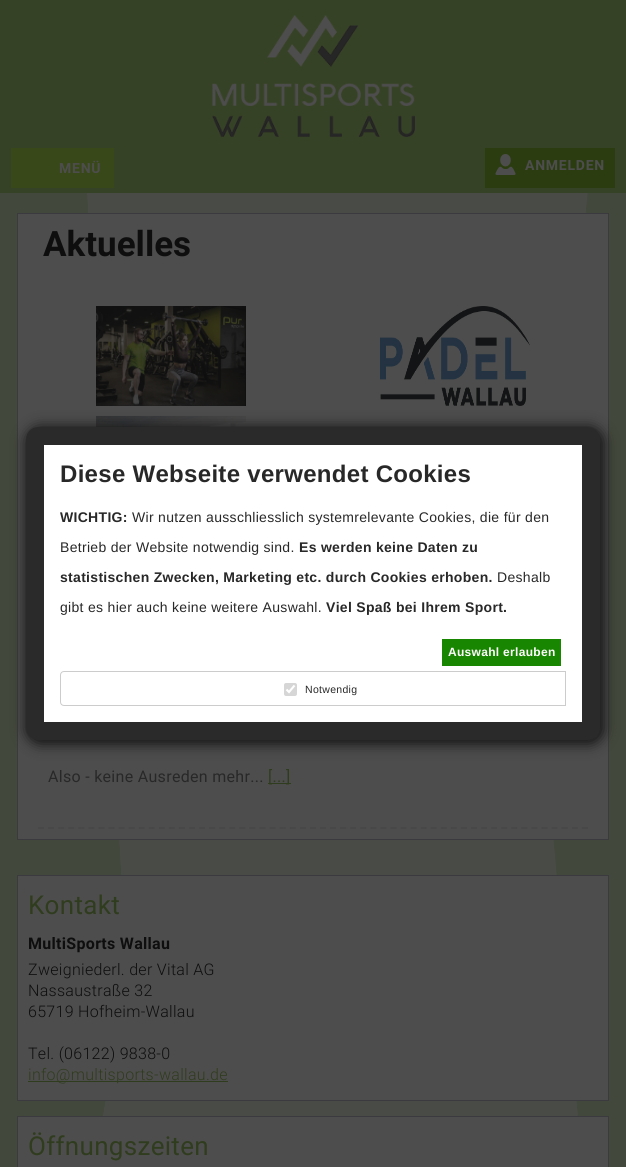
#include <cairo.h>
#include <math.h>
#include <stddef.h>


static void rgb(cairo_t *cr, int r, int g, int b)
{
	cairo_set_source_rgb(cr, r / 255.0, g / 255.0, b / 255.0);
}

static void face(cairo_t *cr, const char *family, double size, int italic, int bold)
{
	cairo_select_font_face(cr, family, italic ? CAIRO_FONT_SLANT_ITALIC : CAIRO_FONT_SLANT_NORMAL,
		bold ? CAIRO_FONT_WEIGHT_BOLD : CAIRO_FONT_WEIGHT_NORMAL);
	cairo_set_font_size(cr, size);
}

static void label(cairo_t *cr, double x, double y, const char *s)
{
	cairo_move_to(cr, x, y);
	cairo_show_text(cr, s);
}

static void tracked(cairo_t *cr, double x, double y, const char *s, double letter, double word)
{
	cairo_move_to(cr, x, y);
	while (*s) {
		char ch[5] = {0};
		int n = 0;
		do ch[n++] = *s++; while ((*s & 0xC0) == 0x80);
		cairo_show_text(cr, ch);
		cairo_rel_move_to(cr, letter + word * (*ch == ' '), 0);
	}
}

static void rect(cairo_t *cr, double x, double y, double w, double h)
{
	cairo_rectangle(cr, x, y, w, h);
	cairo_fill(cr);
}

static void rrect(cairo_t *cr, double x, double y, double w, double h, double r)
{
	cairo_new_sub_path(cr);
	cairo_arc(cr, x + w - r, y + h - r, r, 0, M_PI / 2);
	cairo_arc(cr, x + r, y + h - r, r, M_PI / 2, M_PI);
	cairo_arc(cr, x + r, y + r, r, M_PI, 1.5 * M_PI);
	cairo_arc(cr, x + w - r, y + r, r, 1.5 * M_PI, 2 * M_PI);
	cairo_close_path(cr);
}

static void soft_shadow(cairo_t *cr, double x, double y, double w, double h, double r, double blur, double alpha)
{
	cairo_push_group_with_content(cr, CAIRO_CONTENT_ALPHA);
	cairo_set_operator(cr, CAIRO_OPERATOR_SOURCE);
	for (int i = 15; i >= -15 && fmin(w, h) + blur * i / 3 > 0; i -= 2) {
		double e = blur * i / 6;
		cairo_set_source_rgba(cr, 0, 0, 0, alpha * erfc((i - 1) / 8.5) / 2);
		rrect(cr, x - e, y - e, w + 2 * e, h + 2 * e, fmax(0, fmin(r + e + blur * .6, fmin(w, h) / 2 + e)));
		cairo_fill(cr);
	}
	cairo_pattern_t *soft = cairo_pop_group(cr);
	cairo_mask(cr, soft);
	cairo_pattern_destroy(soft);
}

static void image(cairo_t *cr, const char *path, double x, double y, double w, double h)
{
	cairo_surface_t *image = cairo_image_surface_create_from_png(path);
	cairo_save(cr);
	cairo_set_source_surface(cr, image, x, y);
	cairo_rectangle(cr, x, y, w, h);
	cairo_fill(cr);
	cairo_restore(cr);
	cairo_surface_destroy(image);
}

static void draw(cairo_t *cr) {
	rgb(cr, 255, 255, 255);
	cairo_paint(cr);
	image(cr, "image0.png", 0, 193, 626, 974);
	rgb(cr, 54, 66, 37);
	rect(cr, 0, 0, 626, 193);
	image(cr, "image1.png", 212, 15, 203, 122);
	rgb(cr, 56, 72, 24);
	rect(cr, 11, 148, 103, 40);
	face(cr, "Roboto", 14, 0, 1);
	rgb(cr, 77, 77, 77);
	tracked(cr, 59, 173, "MENÜ", 0.75, 0);
	rgb(cr, 43, 61, 16);
	rect(cr, 485, 148, 130, 40);
	image(cr, "image2.png", 495, 154, 21, 21);
	rgb(cr, 77, 77, 77);
	tracked(cr, 525, 170, "ANMELDEN", 0.75, 0);
	cairo_rectangle(cr, 17.5, 213.5, 591, 626);
	cairo_fill_preserve(cr);
	rgb(cr, 59, 59, 63);
	cairo_set_line_width(cr, 1);
	cairo_stroke(cr);
	face(cr, "Roboto", 35, 0, 1);
	rgb(cr, 14, 14, 14);
	label(cr, 43, 256, "Aktuelles");
	image(cr, "image3.png", 96, 306, 150, 100);
	image(cr, "image4.png", 380, 306, 150, 100);
	image(cr, "image5.png", 96, 416, 150, 11);
	cairo_new_path(cr);
	cairo_move_to(cr, 38, 828);
	cairo_line_to(cr, 588, 828);
	rgb(cr, 72, 72, 73);
	cairo_set_line_width(cr, 2);
	cairo_set_dash(cr, (double[]){6, 4.07}, 2, 0);
	cairo_stroke(cr);
	face(cr, "Roboto", 16, 0, 0);
	rgb(cr, 40, 40, 40);
	tracked(cr, 48, 782, "Also - keine Ausreden mehr...", 0.3, 0);
	rgb(cr, 48, 60, 30);
	rect(cr, 268, 783, 23, 1);
	tracked(cr, 268, 782, "[...]", 0.3, 0);
	rgb(cr, 77, 77, 77);
	cairo_rectangle(cr, 17.5, 875.5, 591, 225);
	cairo_fill_preserve(cr);
	rgb(cr, 59, 59, 63);
	cairo_set_line_width(cr, 1);
	cairo_set_dash(cr, NULL, 0, 0);
	cairo_stroke(cr);
	face(cr, "Roboto", 26, 0, 0);
	rgb(cr, 48, 60, 30);
	tracked(cr, 28, 914, "Kontakt", 0.3, 0);
	face(cr, "Roboto", 16, 0, 1);
	rgb(cr, 14, 14, 14);
	tracked(cr, 28, 949, "MultiSports Wallau", 0.3, 0);
	face(cr, "Roboto Light", 16, 0, 0);
	tracked(cr, 28, 975, "Zweigniederl. der Vital AG", 0.3, 0);
	tracked(cr, 28, 996, "Nassaustraße 32", 0.3, 0);
	tracked(cr, 28, 1017, "65719 Hofheim-Wallau", 0.3, 0);
	tracked(cr, 28, 1059, "Tel. (06122) 9838-0", 0.3, 0);
	rgb(cr, 48, 60, 30);
	rect(cr, 28, 1081, 200, 1);
	tracked(cr, 28, 1080, "info@multisports-wallau.de", 0.3, 0);
	rgb(cr, 77, 77, 77);
	cairo_rectangle(cr, 17.5, 1116.5, 591, 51);
	cairo_fill_preserve(cr);
	rgb(cr, 59, 59, 63);
	cairo_stroke(cr);
	face(cr, "Roboto", 26, 0, 0);
	rgb(cr, 48, 60, 30);
	tracked(cr, 28, 1155, "Öffnungszeiten", 0.3, 0);
	rgb(cr, 18, 18, 18);
	soft_shadow(cr, 26, 427, 578, 317, 14, 7, 1);
	rrect(cr, 35, 436, 556, 295, 3);
	rgb(cr, 42, 42, 42);
	cairo_set_line_width(cr, 18);
	cairo_stroke(cr);
	rgb(cr, 255, 255, 255);
	rect(cr, 44, 445, 538, 277);
	face(cr, "Liberation Sans", 24, 0, 1);
	rgb(cr, 40, 40, 40);
	tracked(cr, 60, 482, "Diese Webseite verwendet Cookies", 0.3, 0);
	face(cr, "Liberation Sans", 14, 0, 1);
	tracked(cr, 60, 522, "WICHTIG:", 0.3, 0);
	face(cr, "Liberation Sans", 14, 0, 0);
	tracked(cr, 132, 522, "Wir nutzen ausschliesslich systemrelevante Cookies, die für den", 0.3, 0);
	tracked(cr, 60, 552, "Betrieb der Website notwendig sind.", 0.3, 0);
	face(cr, "Liberation Sans", 14, 0, 1);
	tracked(cr, 299, 552, "Es werden keine Daten zu", 0.3, 0);
	tracked(cr, 60, 582, "statistischen Zwecken, Marketing etc. durch Cookies erhoben.", 0.3, 0);
	face(cr, "Liberation Sans", 14, 0, 0);
	tracked(cr, 497, 582, "Deshalb", 0.3, 0);
	tracked(cr, 60, 612, "gibt es hier auch keine weitere Auswahl.", 0.3, 0);
	face(cr, "Liberation Sans", 14, 0, 1);
	tracked(cr, 326, 612, "Viel Spaß bei Ihrem Sport.", 0.3, 0);
	rgb(cr, 24, 134, 0);
	rect(cr, 442, 639, 119, 27);
	face(cr, "Liberation Sans", 12, 0, 1);
	rgb(cr, 255, 255, 255);
	tracked(cr, 448, 656, "Auswahl erlauben", 0.3, 0);
	cairo_new_path(cr);
	cairo_move_to(cr, 64, 671.5);
	cairo_line_to(cr, 565.5, 671.5);
	cairo_line_to(cr, 565.5, 705.5);
	cairo_line_to(cr, 64, 705.5);
	cairo_curve_to(cr, 62, 705.5, 60.5, 704, 60.5, 702);
	cairo_line_to(cr, 60.5, 675);
	cairo_curve_to(cr, 60.5, 673, 62, 671.5, 64, 671.5);
	cairo_close_path(cr);
	rgb(cr, 204, 204, 204);
	cairo_set_line_width(cr, 1);
	cairo_stroke(cr);
	rgb(cr, 214, 214, 214);
	rrect(cr, 284, 683, 13, 13, 2);
	cairo_fill(cr);
	cairo_new_path(cr);
	cairo_move_to(cr, 286.5, 689.5);
	cairo_line_to(cr, 289, 692);
	cairo_line_to(cr, 294.5, 685.5);
	rgb(cr, 255, 255, 255);
	cairo_set_line_width(cr, 2.1);
	cairo_stroke(cr);
	face(cr, "Liberation Sans", 10.5, 0, 0);
	rgb(cr, 40, 40, 40);
	tracked(cr, 305, 693, "Notwendig", 0.3, 0);
}

int main(void) {
	cairo_surface_t *surface = cairo_image_surface_create(CAIRO_FORMAT_RGB24, 626, 1167);
	cairo_t *cr = cairo_create(surface);
	cairo_font_options_t *options = cairo_font_options_create();
	cairo_font_options_set_hint_metrics(options, CAIRO_HINT_METRICS_OFF);
	cairo_font_options_set_hint_style(options, CAIRO_HINT_STYLE_NONE);
	cairo_set_font_options(cr, options);
	cairo_set_miter_limit(cr, 4);
	draw(cr);
	cairo_surface_write_to_png(surface, "render.png");
	cairo_font_options_destroy(options);
	cairo_destroy(cr);
	cairo_surface_destroy(surface);
	return 0;
}
